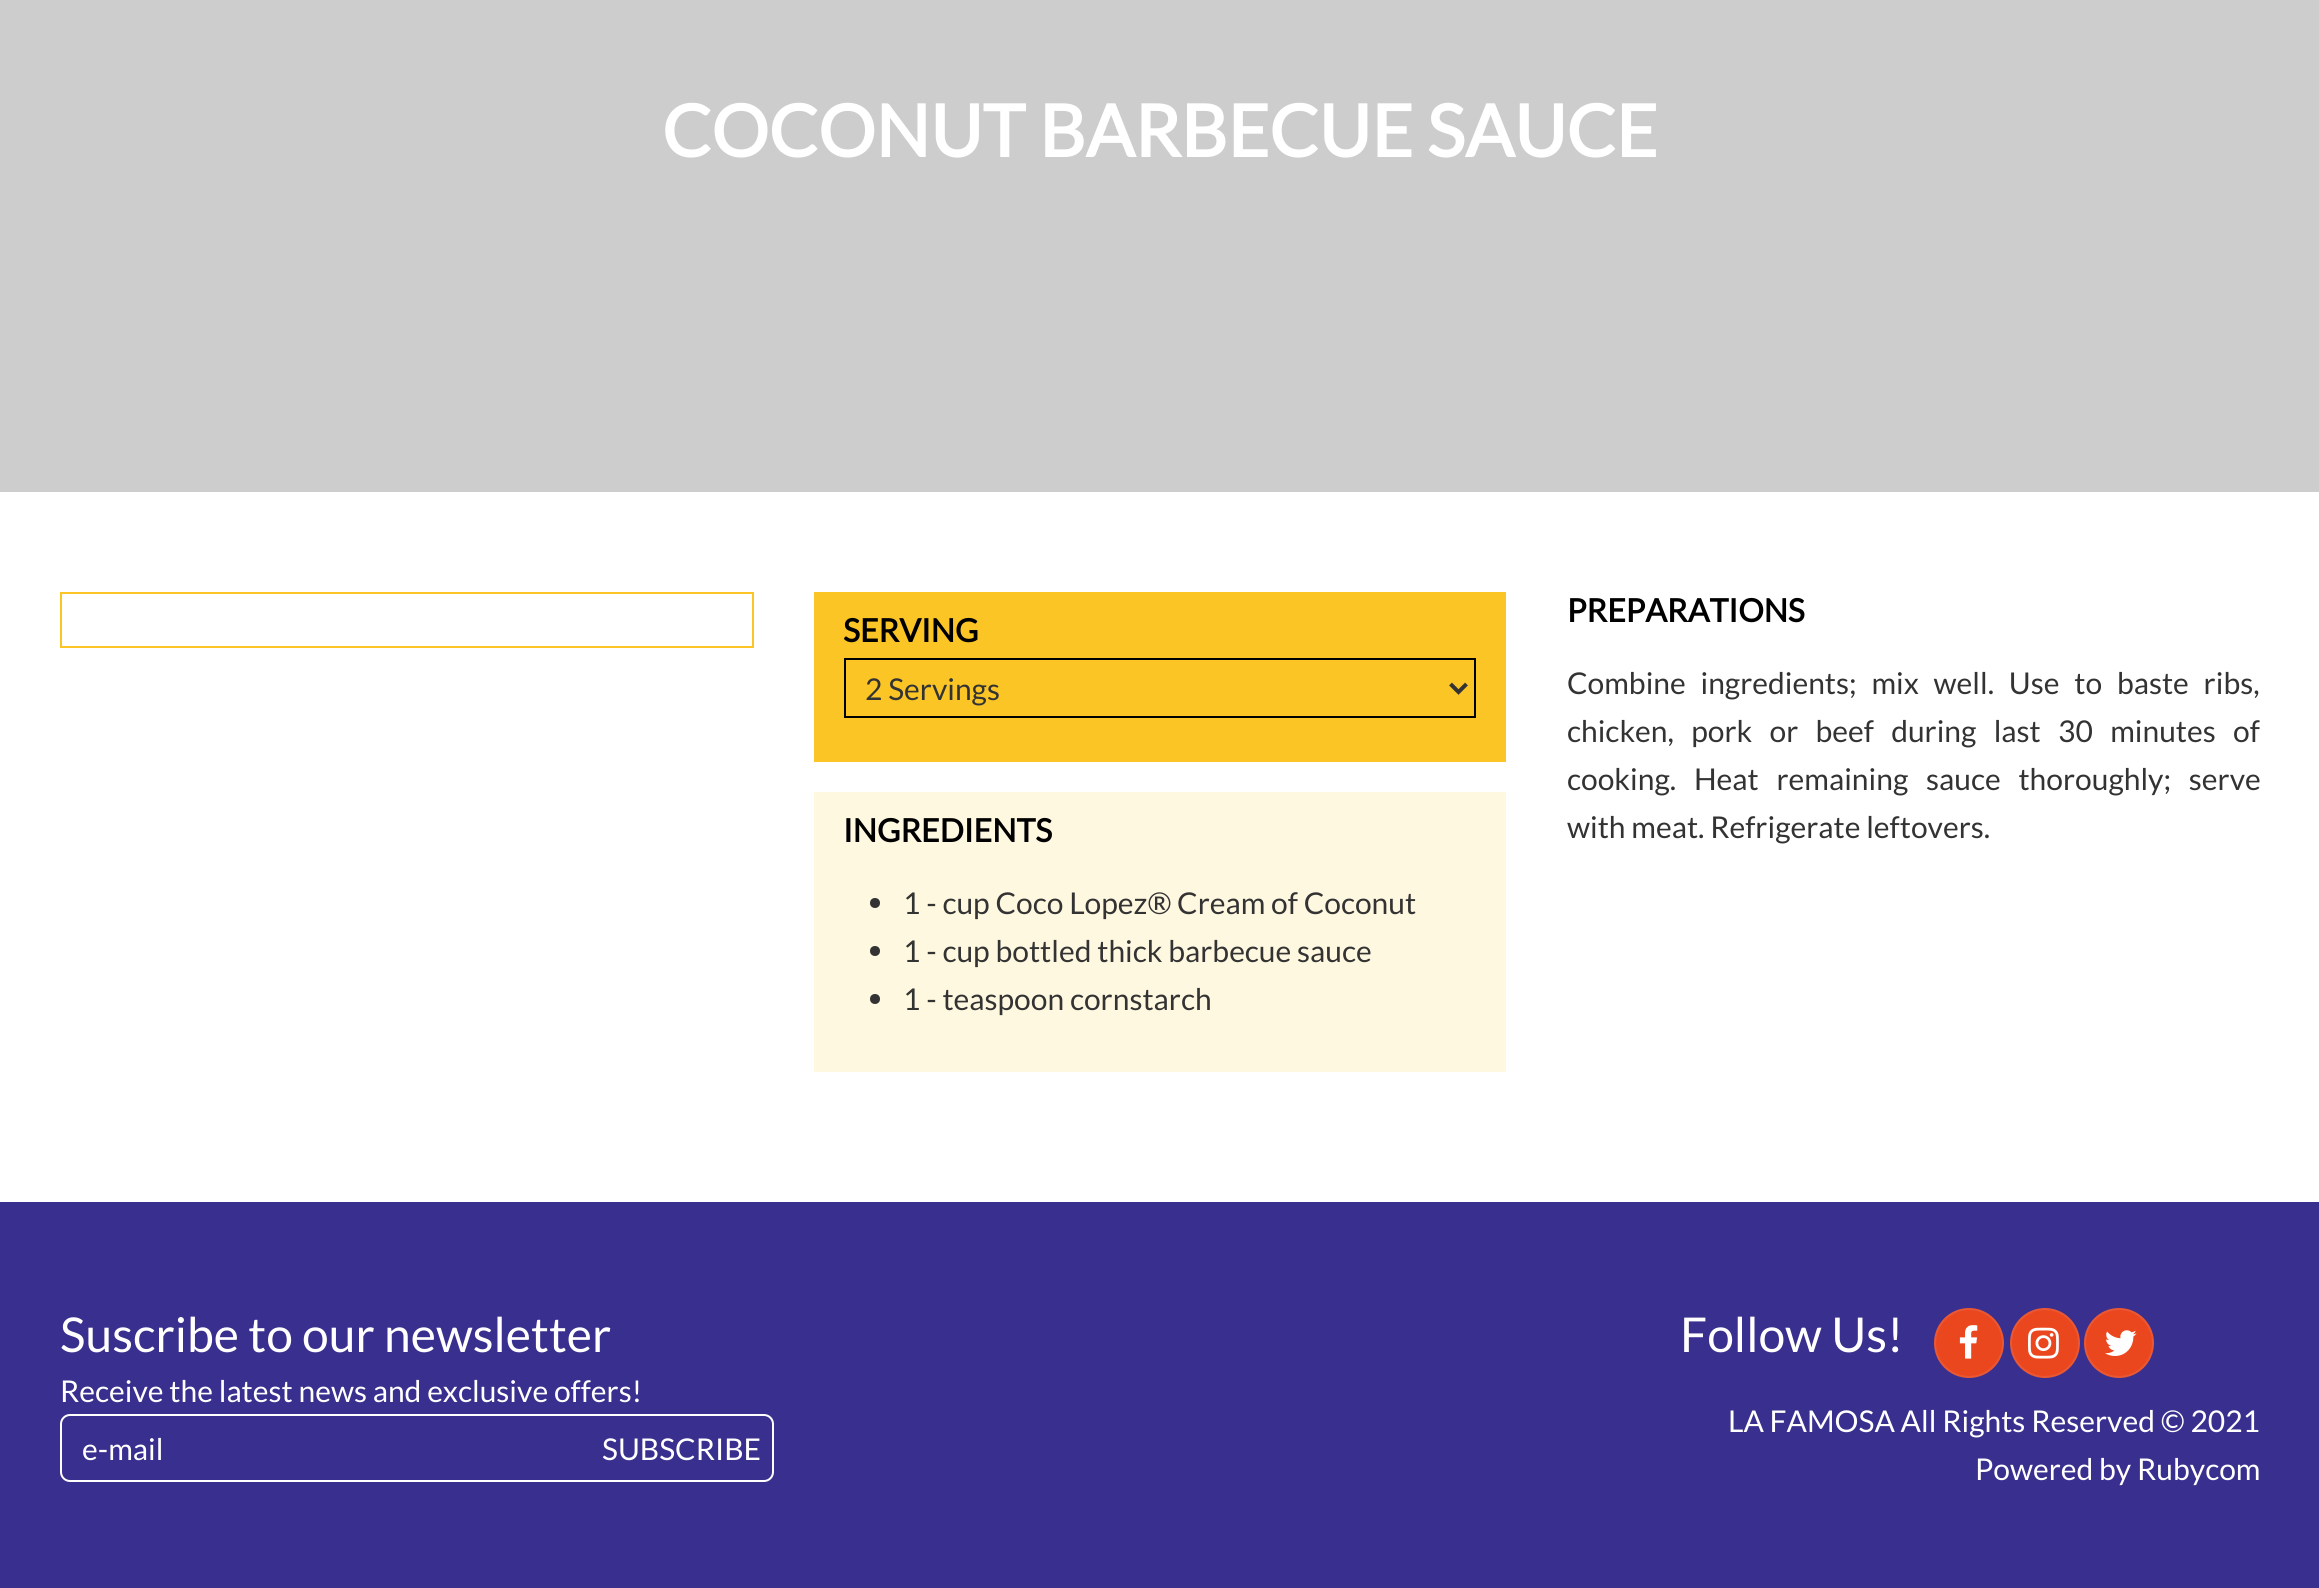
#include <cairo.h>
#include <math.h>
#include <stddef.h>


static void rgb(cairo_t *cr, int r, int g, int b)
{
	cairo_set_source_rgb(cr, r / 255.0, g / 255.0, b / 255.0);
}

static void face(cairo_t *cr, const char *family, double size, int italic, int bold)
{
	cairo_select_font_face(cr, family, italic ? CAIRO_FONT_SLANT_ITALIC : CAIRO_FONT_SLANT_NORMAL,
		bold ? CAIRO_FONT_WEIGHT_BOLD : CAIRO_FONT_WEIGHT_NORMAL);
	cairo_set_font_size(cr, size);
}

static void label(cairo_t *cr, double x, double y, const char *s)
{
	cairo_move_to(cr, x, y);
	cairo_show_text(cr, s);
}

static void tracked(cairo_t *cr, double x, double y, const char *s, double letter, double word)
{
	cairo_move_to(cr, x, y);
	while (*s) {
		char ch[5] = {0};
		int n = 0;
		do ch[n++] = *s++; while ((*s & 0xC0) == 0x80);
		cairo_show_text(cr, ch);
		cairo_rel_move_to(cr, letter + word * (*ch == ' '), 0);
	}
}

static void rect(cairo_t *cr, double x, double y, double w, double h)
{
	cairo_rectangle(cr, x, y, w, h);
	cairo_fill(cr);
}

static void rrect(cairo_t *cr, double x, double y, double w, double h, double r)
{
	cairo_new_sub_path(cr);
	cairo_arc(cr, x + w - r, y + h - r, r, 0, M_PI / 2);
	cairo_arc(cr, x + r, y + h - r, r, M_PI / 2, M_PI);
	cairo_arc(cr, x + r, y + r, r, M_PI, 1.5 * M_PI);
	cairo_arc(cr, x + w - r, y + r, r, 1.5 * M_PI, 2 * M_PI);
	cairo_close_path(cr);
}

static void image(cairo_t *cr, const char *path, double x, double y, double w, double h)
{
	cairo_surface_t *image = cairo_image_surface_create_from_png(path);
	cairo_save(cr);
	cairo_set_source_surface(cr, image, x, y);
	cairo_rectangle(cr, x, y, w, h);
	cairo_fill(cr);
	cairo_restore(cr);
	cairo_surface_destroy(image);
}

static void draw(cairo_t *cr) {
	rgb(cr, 255, 255, 255);
	cairo_paint(cr);
	rgb(cr, 205, 205, 205);
	rect(cr, 0, 0, 2319, 492);
	face(cr, "Lato", 72, 0, 1);
	rgb(cr, 255, 255, 255);
	label(cr, 662, 157, "COCONUT BARBECUE SAUCE");
	cairo_rectangle(cr, 61, 593, 692, 54);
	rgb(cr, 251, 197, 37);
	cairo_stroke(cr);
	rect(cr, 814, 592, 692, 170);
	face(cr, "Lato", 32, 0, 1);
	rgb(cr, 0, 0, 0);
	label(cr, 843, 642, "SERVING");
	cairo_rectangle(cr, 845, 659, 630, 58);
	cairo_stroke(cr);
	cairo_new_path(cr);
	cairo_move_to(cr, 1450.5, 684);
	cairo_line_to(cr, 1458.5, 692);
	cairo_line_to(cr, 1466.5, 684);
	rgb(cr, 51, 51, 51);
	cairo_set_line_width(cr, 4);
	cairo_stroke(cr);
	face(cr, "Lato", 30, 0, 0);
	label(cr, 865, 700, "2 Servings");
	rgb(cr, 255, 248, 224);
	rect(cr, 814, 792, 692, 280);
	face(cr, "Lato", 32, 0, 1);
	rgb(cr, 0, 0, 0);
	label(cr, 843, 842, "INGREDIENTS");
	rgb(cr, 51, 51, 51);
	cairo_new_path(cr);
	cairo_arc(cr, 875, 903, 5, 0, 2 * M_PI);
	cairo_fill(cr);
	face(cr, "Lato", 30, 0, 0);
	label(cr, 903, 914, "1 - cup Coco Lopez® Cream of Coconut");
	cairo_new_path(cr);
	cairo_arc(cr, 875, 951, 5, 0, 2 * M_PI);
	cairo_fill(cr);
	label(cr, 903, 962, "1 - cup bottled thick barbecue sauce");
	cairo_new_path(cr);
	cairo_arc(cr, 875, 999, 5, 0, 2 * M_PI);
	cairo_fill(cr);
	label(cr, 903, 1010, "1 - teaspoon cornstarch");
	face(cr, "Lato", 32, 0, 1);
	rgb(cr, 0, 0, 0);
	label(cr, 1567, 622, "PREPARATIONS");
	face(cr, "Lato", 30, 0, 0);
	rgb(cr, 51, 51, 51);
	tracked(cr, 1567, 694, "Combine ingredients; mix well. Use to baste ribs,", 0, 9);
	tracked(cr, 1567, 742, "chicken, pork or beef during last 30 minutes of", 0, 11.5);
	tracked(cr, 1567, 790, "cooking. Heat remaining sauce thoroughly; serve", 0, 12);
	label(cr, 1567, 838, "with meat. Refrigerate leftovers.");
	rgb(cr, 57, 47, 142);
	rect(cr, 0, 1202, 2319, 386);
	face(cr, "Lato", 48, 0, 0);
	rgb(cr, 255, 255, 255);
	label(cr, 60, 1352, "Suscribe to our newsletter");
	face(cr, "Lato", 30, 0, 0);
	label(cr, 60, 1402, "Receive the latest news and exclusive offers!");
	rrect(cr, 61, 1415, 712, 66, 9);
	cairo_set_line_width(cr, 2);
	cairo_stroke(cr);
	label(cr, 82, 1460, "e-mail");
	label(cr, 602, 1460, "SUBSCRIBE");
	face(cr, "Lato", 48, 0, 0);
	label(cr, 1680, 1352, "Follow Us!");
	rgb(cr, 235, 71, 31);
	cairo_new_path(cr);
	cairo_arc(cr, 1969, 1343, 34, 0, 2 * M_PI);
	cairo_fill_preserve(cr);
	rgb(cr, 234, 88, 51);
	cairo_stroke(cr);
	image(cr, "image0.png", 1959, 1325, 19, 34);
	rgb(cr, 235, 71, 31);
	cairo_arc(cr, 2045, 1343, 34, 0, 2 * M_PI);
	cairo_fill_preserve(cr);
	rgb(cr, 234, 88, 51);
	cairo_stroke(cr);
	image(cr, "image1.png", 2028, 1327, 31, 32);
	rgb(cr, 235, 71, 31);
	cairo_arc(cr, 2119, 1343, 34, 0, 2 * M_PI);
	cairo_fill_preserve(cr);
	rgb(cr, 234, 88, 51);
	cairo_stroke(cr);
	image(cr, "image2.png", 2105, 1330, 32, 26);
	face(cr, "Lato", 30, 0, 0);
	rgb(cr, 255, 255, 255);
	label(cr, 1728, 1432, "LA FAMOSA All Rights Reserved © 2021");
	label(cr, 1975, 1480, "Powered by Rubycom");
}

int main(void) {
	cairo_surface_t *surface = cairo_image_surface_create(CAIRO_FORMAT_RGB24, 2319, 1588);
	cairo_t *cr = cairo_create(surface);
	cairo_font_options_t *options = cairo_font_options_create();
	cairo_font_options_set_hint_metrics(options, CAIRO_HINT_METRICS_OFF);
	cairo_font_options_set_hint_style(options, CAIRO_HINT_STYLE_NONE);
	cairo_set_font_options(cr, options);
	cairo_set_miter_limit(cr, 4);
	draw(cr);
	cairo_surface_write_to_png(surface, "render.png");
	cairo_font_options_destroy(options);
	cairo_destroy(cr);
	cairo_surface_destroy(surface);
	return 0;
}
